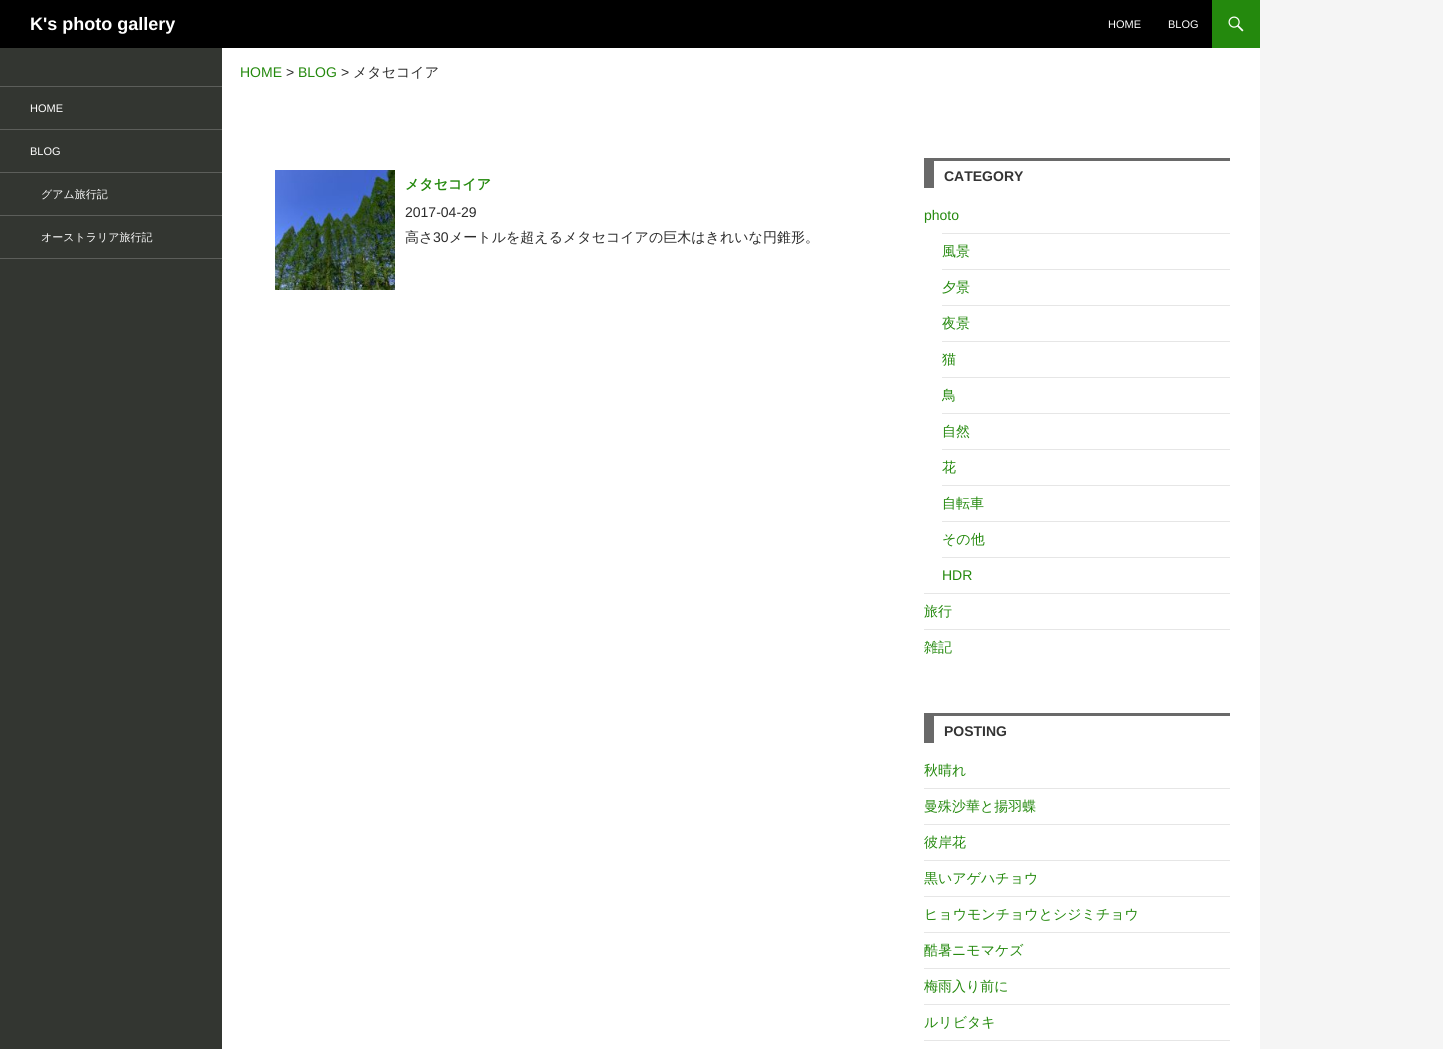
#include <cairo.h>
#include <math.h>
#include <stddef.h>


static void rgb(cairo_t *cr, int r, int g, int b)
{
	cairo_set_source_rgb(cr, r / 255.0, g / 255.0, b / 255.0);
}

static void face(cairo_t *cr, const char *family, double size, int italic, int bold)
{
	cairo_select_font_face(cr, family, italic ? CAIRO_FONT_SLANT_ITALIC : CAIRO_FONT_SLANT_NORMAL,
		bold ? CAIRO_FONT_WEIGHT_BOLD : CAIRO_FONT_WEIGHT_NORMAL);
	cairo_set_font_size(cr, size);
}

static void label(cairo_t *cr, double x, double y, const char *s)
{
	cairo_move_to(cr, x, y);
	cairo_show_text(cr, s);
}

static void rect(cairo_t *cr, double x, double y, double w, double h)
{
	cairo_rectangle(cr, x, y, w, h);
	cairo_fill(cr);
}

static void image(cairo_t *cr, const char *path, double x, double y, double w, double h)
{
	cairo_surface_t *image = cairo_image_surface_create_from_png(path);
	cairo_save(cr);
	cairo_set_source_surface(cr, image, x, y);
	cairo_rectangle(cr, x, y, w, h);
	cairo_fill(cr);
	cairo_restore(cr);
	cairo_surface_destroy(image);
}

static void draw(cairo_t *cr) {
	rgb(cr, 245, 245, 245);
	cairo_paint(cr);
	rgb(cr, 255, 255, 255);
	rect(cr, 222, 48, 1038, 1001);
	rgb(cr, 0, 0, 0);
	rect(cr, 0, 0, 1212, 48);
	face(cr, "Liberation Sans", 18, 0, 1);
	rgb(cr, 255, 255, 255);
	label(cr, 30, 30, "K's photo gallery");
	face(cr, "Liberation Sans", 11, 0, 0);
	label(cr, 1108, 28, "HOME");
	label(cr, 1168, 28, "BLOG");
	rgb(cr, 36, 137, 13);
	rect(cr, 1212, 0, 48, 48);
	image(cr, "image0.png", 1228, 16, 16, 16);
	rgb(cr, 51, 54, 49);
	rect(cr, 0, 48, 222, 1001);
	face(cr, "Liberation Sans", 14, 0, 0);
	rgb(cr, 36, 137, 13);
	label(cr, 240, 77, "HOME");
	rgb(cr, 43, 43, 43);
	label(cr, 286, 77, ">");
	rgb(cr, 36, 137, 13);
	label(cr, 298, 77, "BLOG");
	rgb(cr, 43, 43, 43);
	label(cr, 341, 77, ">");
	face(cr, "WenQuanYi Zen Hei Medium", 14, 0, 0);
	label(cr, 353, 77, "メタセコイア");
	rgb(cr, 92, 94, 90);
	rect(cr, 0, 258, 222, 1);
	rect(cr, 0, 86, 222, 1);
	face(cr, "Liberation Sans", 11, 0, 0);
	rgb(cr, 255, 255, 255);
	label(cr, 30, 112, "HOME");
	rgb(cr, 92, 94, 90);
	rect(cr, 0, 129, 222, 1);
	rgb(cr, 255, 255, 255);
	label(cr, 30, 155, "BLOG");
	rgb(cr, 92, 94, 90);
	rect(cr, 0, 172, 222, 1);
	face(cr, "WenQuanYi Zen Hei Medium", 11, 0, 0);
	rgb(cr, 255, 255, 255);
	label(cr, 41, 198, "グアム旅行記");
	rgb(cr, 92, 94, 90);
	rect(cr, 0, 215, 222, 1);
	rgb(cr, 255, 255, 255);
	label(cr, 41, 241, "オーストラリア旅行記");
	image(cr, "image1.png", 275, 170, 120, 120);
	face(cr, "WenQuanYi Zen Hei", 14, 0, 1);
	rgb(cr, 36, 137, 13);
	label(cr, 405, 189, "メタセコイア");
	face(cr, "Liberation Sans", 14, 0, 0);
	rgb(cr, 43, 43, 43);
	label(cr, 405, 217, "2017-04-29");
	face(cr, "WenQuanYi Zen Hei Medium", 14, 0, 0);
	label(cr, 405, 242, "高さ");
	face(cr, "Liberation Sans", 14, 0, 0);
	label(cr, 433, 242, "30");
	face(cr, "WenQuanYi Zen Hei Medium", 14, 0, 0);
	label(cr, 449, 242, "メートルを超えるメタセコイアの巨木はきれいな円錐形。");
	rgb(cr, 105, 105, 105);
	rect(cr, 934, 158, 296, 3);
	rect(cr, 924, 158, 10, 30);
	face(cr, "Liberation Sans", 14, 0, 1);
	rgb(cr, 52, 52, 52);
	label(cr, 944, 181, "CATEGORY");
	face(cr, "Liberation Sans", 14, 0, 0);
	rgb(cr, 36, 137, 13);
	label(cr, 924, 220, "photo");
	rgb(cr, 230, 230, 230);
	rect(cr, 942, 233, 288, 1);
	face(cr, "WenQuanYi Zen Hei Medium", 14, 0, 0);
	rgb(cr, 36, 137, 13);
	label(cr, 942, 256, "風景");
	rgb(cr, 230, 230, 230);
	rect(cr, 942, 269, 288, 1);
	rgb(cr, 36, 137, 13);
	label(cr, 942, 292, "夕景");
	rgb(cr, 230, 230, 230);
	rect(cr, 942, 305, 288, 1);
	rgb(cr, 36, 137, 13);
	label(cr, 942, 328, "夜景");
	rgb(cr, 230, 230, 230);
	rect(cr, 942, 341, 288, 1);
	rgb(cr, 36, 137, 13);
	label(cr, 942, 364, "猫");
	rgb(cr, 230, 230, 230);
	rect(cr, 942, 377, 288, 1);
	rgb(cr, 36, 137, 13);
	label(cr, 942, 400, "鳥");
	rgb(cr, 230, 230, 230);
	rect(cr, 942, 413, 288, 1);
	rgb(cr, 36, 137, 13);
	label(cr, 942, 436, "自然");
	rgb(cr, 230, 230, 230);
	rect(cr, 942, 449, 288, 1);
	rgb(cr, 36, 137, 13);
	label(cr, 942, 472, "花");
	rgb(cr, 230, 230, 230);
	rect(cr, 942, 485, 288, 1);
	rgb(cr, 36, 137, 13);
	label(cr, 942, 508, "自転車");
	rgb(cr, 230, 230, 230);
	rect(cr, 942, 521, 288, 1);
	rgb(cr, 36, 137, 13);
	label(cr, 942, 544, "その他");
	rgb(cr, 230, 230, 230);
	rect(cr, 942, 557, 288, 1);
	face(cr, "Liberation Sans", 14, 0, 0);
	rgb(cr, 36, 137, 13);
	label(cr, 942, 580, "HDR");
	rgb(cr, 230, 230, 230);
	rect(cr, 924, 593, 306, 1);
	face(cr, "WenQuanYi Zen Hei Medium", 14, 0, 0);
	rgb(cr, 36, 137, 13);
	label(cr, 924, 616, "旅行");
	rgb(cr, 230, 230, 230);
	rect(cr, 924, 629, 306, 1);
	rgb(cr, 36, 137, 13);
	label(cr, 924, 652, "雑記");
	rgb(cr, 105, 105, 105);
	rect(cr, 934, 713, 296, 3);
	rect(cr, 924, 713, 10, 30);
	face(cr, "Liberation Sans", 14, 0, 1);
	rgb(cr, 52, 52, 52);
	label(cr, 944, 736, "POSTING");
	face(cr, "WenQuanYi Zen Hei Medium", 14, 0, 0);
	rgb(cr, 36, 137, 13);
	label(cr, 924, 775, "秋晴れ");
	rgb(cr, 230, 230, 230);
	rect(cr, 924, 788, 306, 1);
	rgb(cr, 36, 137, 13);
	label(cr, 924, 811, "曼殊沙華と揚羽蝶");
	rgb(cr, 230, 230, 230);
	rect(cr, 924, 824, 306, 1);
	rgb(cr, 36, 137, 13);
	label(cr, 924, 847, "彼岸花");
	rgb(cr, 230, 230, 230);
	rect(cr, 924, 860, 306, 1);
	rgb(cr, 36, 137, 13);
	label(cr, 924, 883, "黒いアゲハチョウ");
	rgb(cr, 230, 230, 230);
	rect(cr, 924, 896, 306, 1);
	rgb(cr, 36, 137, 13);
	label(cr, 924, 919, "ヒョウモンチョウとシジミチョウ");
	rgb(cr, 230, 230, 230);
	rect(cr, 924, 932, 306, 1);
	rgb(cr, 36, 137, 13);
	label(cr, 924, 955, "酷暑ニモマケズ");
	rgb(cr, 230, 230, 230);
	rect(cr, 924, 968, 306, 1);
	rgb(cr, 36, 137, 13);
	label(cr, 924, 991, "梅雨入り前に");
	rgb(cr, 230, 230, 230);
	rect(cr, 924, 1004, 306, 1);
	rgb(cr, 36, 137, 13);
	label(cr, 924, 1027, "ルリビタキ");
	rgb(cr, 230, 230, 230);
	rect(cr, 924, 1040, 306, 1);
}

int main(void) {
	cairo_surface_t *surface = cairo_image_surface_create(CAIRO_FORMAT_RGB24, 1443, 1049);
	cairo_t *cr = cairo_create(surface);
	cairo_font_options_t *options = cairo_font_options_create();
	cairo_font_options_set_hint_metrics(options, CAIRO_HINT_METRICS_OFF);
	cairo_font_options_set_hint_style(options, CAIRO_HINT_STYLE_NONE);
	cairo_set_font_options(cr, options);
	cairo_set_miter_limit(cr, 4);
	draw(cr);
	cairo_surface_write_to_png(surface, "render.png");
	cairo_font_options_destroy(options);
	cairo_destroy(cr);
	cairo_surface_destroy(surface);
	return 0;
}
